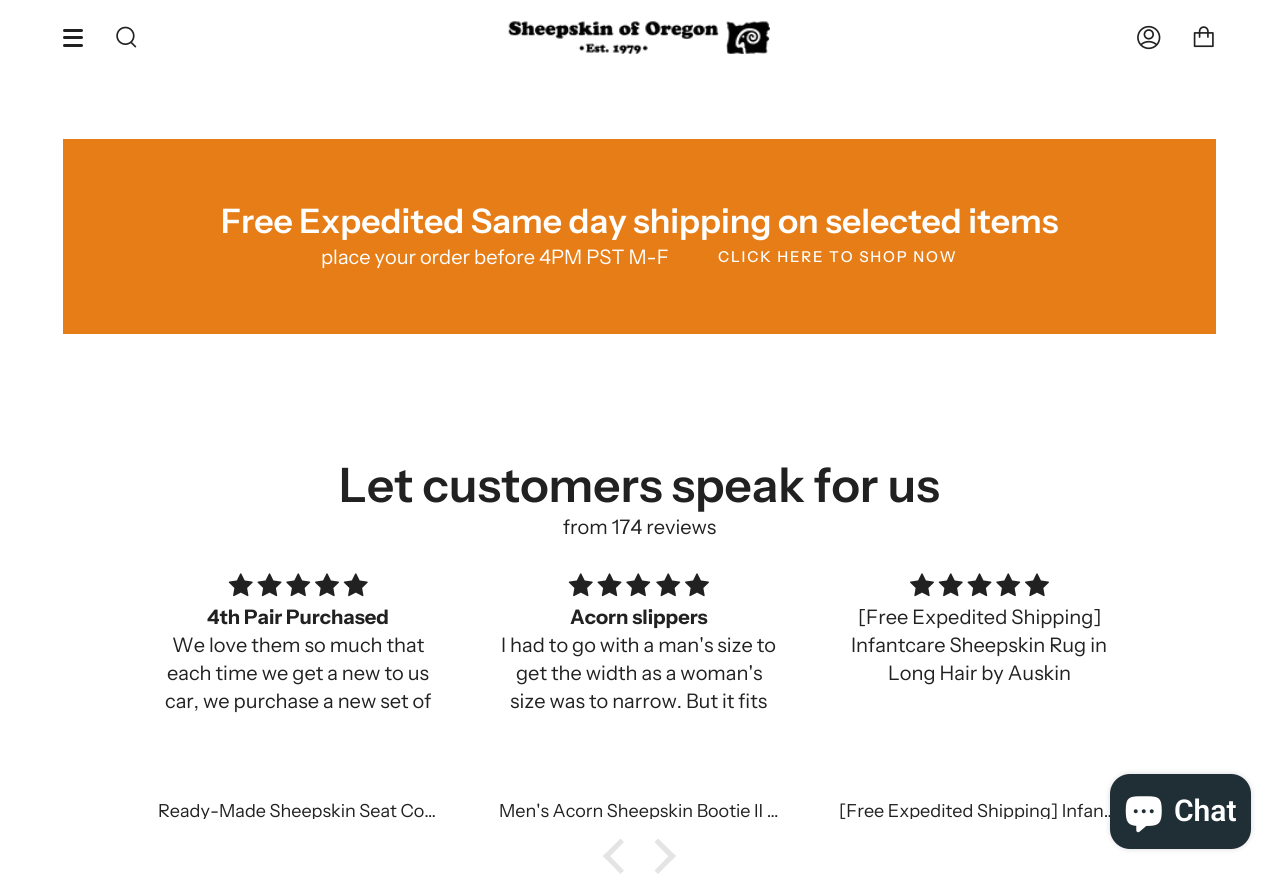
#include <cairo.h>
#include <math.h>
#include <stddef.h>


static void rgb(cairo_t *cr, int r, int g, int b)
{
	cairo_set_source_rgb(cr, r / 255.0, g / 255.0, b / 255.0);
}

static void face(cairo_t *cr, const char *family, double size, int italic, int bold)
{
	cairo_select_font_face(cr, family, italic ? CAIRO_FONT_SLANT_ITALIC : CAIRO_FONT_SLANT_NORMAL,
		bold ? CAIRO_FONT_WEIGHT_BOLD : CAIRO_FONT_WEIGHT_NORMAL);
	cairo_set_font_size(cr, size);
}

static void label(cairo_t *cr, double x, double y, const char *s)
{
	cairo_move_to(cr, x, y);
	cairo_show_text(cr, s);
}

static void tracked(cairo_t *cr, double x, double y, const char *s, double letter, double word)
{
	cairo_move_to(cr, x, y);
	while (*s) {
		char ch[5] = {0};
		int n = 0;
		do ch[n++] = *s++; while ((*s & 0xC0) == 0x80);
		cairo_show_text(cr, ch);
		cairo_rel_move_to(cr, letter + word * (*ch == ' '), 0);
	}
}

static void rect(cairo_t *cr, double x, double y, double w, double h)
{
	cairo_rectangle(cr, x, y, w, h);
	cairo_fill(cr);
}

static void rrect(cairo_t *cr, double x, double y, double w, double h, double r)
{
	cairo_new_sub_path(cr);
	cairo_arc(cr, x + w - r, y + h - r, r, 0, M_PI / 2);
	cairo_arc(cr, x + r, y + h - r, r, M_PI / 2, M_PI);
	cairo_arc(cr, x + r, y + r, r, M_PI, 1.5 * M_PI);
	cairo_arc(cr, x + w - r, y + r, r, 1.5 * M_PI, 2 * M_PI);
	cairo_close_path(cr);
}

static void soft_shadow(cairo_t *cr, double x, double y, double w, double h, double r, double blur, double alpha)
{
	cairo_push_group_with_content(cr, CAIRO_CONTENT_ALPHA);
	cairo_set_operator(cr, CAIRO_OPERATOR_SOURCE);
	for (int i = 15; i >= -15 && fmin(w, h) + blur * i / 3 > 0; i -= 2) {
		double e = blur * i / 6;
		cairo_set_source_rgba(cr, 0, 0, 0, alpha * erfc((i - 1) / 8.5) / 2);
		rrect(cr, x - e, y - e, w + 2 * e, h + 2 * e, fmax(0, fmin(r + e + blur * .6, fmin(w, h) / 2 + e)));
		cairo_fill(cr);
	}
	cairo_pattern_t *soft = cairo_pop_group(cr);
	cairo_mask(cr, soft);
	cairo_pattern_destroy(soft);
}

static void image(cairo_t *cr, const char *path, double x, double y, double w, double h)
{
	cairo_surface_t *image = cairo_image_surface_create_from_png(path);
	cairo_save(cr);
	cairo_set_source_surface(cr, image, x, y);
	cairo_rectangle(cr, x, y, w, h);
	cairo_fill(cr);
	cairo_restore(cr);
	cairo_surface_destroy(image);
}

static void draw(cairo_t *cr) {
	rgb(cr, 255, 255, 255);
	cairo_paint(cr);
	rgb(cr, 33, 33, 33);
	rrect(cr, 63, 29, 20, 3, 1.5);
	cairo_fill(cr);
	rrect(cr, 63, 36, 20, 3, 1.5);
	cairo_fill(cr);
	rrect(cr, 63, 44, 20, 3, 1.5);
	cairo_fill(cr);
	image(cr, "image0.png", 116, 26, 21, 22);
	image(cr, "image1.png", 508, 21, 262, 33);
	image(cr, "image2.png", 1137, 25, 24, 25);
	image(cr, "image3.png", 1193, 26, 21, 22);
	rgb(cr, 230, 125, 23);
	rect(cr, 63, 139, 1153, 195);
	face(cr, "Instrument Sans SemiBold", 33.75, 0, 0);
	rgb(cr, 255, 255, 255);
	label(cr, 221, 233, "Free Expedited Same day shipping on selected items");
	face(cr, "Instrument Sans", 20, 0, 0);
	label(cr, 321, 264, "place your order before 4PM PST M-F");
	face(cr, "Instrument Sans Medium", 15, 0, 0);
	tracked(cr, 718, 262, "CLICK HERE TO SHOP NOW", 1.8, 0);
	face(cr, "Instrument Sans SemiBold", 47.5, 0, 0);
	rgb(cr, 33, 33, 33);
	label(cr, 339, 502, "Let customers speak for us");
	face(cr, "Instrument Sans", 20, 0, 0);
	label(cr, 563, 534, "from 174 reviews");
	image(cr, "image4.png", 228, 573, 25, 24);
	image(cr, "image5.png", 257, 573, 25, 24);
	image(cr, "image6.png", 286, 573, 25, 24);
	image(cr, "image7.png", 315, 573, 24, 24);
	image(cr, "image4.png", 343, 573, 25, 24);
	face(cr, "Instrument Sans", 20, 0, 1);
	label(cr, 207, 624, "4th Pair Purchased");
	face(cr, "Instrument Sans", 20, 0, 0);
	label(cr, 172, 652, "We love them so much that");
	label(cr, 167, 680, "each time we get a new to us");
	label(cr, 165, 708, "car, we purchase a new set of");
	cairo_save(cr);
	cairo_rectangle(cr, 158, 799, 281, 20);
	cairo_clip(cr);
	face(cr, "Instrument Sans", 18, 0, 0);
	label(cr, 158, 817, "Ready-Made Sheepskin Seat Co…");
	cairo_restore(cr);
	image(cr, "image4.png", 568, 573, 25, 24);
	image(cr, "image5.png", 597, 573, 25, 24);
	image(cr, "image6.png", 626, 573, 25, 24);
	image(cr, "image6.png", 656, 573, 25, 24);
	image(cr, "image7.png", 685, 573, 24, 24);
	face(cr, "Instrument Sans", 20, 0, 1);
	label(cr, 570, 624, "Acorn slippers");
	face(cr, "Instrument Sans", 20, 0, 0);
	label(cr, 501, 652, "I had to go with a man's size to");
	label(cr, 516, 680, "get the width as a woman's");
	label(cr, 510, 708, "size was to narrow. But it fits");
	cairo_save(cr);
	cairo_rectangle(cr, 499, 799, 280, 20);
	cairo_clip(cr);
	face(cr, "Instrument Sans", 18, 0, 0);
	label(cr, 499, 817, "Men's Acorn Sheepskin Bootie II …");
	cairo_restore(cr);
	image(cr, "image7.png", 910, 573, 24, 24);
	image(cr, "image4.png", 938, 573, 25, 24);
	image(cr, "image5.png", 967, 573, 25, 24);
	image(cr, "image6.png", 996, 573, 25, 24);
	image(cr, "image7.png", 1025, 573, 24, 24);
	label(cr, 858, 624, "[Free Expedited Shipping]");
	label(cr, 851, 652, "Infantcare Sheepskin Rug in");
	label(cr, 888, 680, "Long Hair by Auskin");
	cairo_save(cr);
	cairo_rectangle(cr, 839, 799, 281, 20);
	cairo_clip(cr);
	face(cr, "Instrument Sans", 18, 0, 0);
	label(cr, 839, 817, "[Free Expedited Shipping] Infan…");
	cairo_restore(cr);
	rgb(cr, 228, 228, 228);
	cairo_new_path(cr);
	cairo_move_to(cr, 603, 856);
	cairo_line_to(cr, 620.5, 838.5);
	cairo_line_to(cr, 624, 842);
	cairo_line_to(cr, 606.5, 860);
	cairo_close_path(cr);
	cairo_fill(cr);
	cairo_new_path(cr);
	cairo_move_to(cr, 603, 856);
	cairo_line_to(cr, 606.5, 852.5);
	cairo_line_to(cr, 624, 870.5);
	cairo_line_to(cr, 620.5, 874);
	cairo_close_path(cr);
	cairo_fill(cr);
	cairo_new_path(cr);
	cairo_move_to(cr, 654.5, 842);
	cairo_line_to(cr, 658, 838.5);
	cairo_line_to(cr, 676, 856);
	cairo_line_to(cr, 672, 860);
	cairo_close_path(cr);
	cairo_fill(cr);
	cairo_new_path(cr);
	cairo_move_to(cr, 654.5, 870.5);
	cairo_line_to(cr, 672, 852.5);
	cairo_line_to(cr, 676, 856);
	cairo_line_to(cr, 658, 874);
	cairo_close_path(cr);
	cairo_fill(cr);
	rgb(cr, 0, 0, 0);
	soft_shadow(cr, 1110, 774, 141, 75, 20, 3, 0.15);
	rgb(cr, 32, 46, 54);
	rrect(cr, 1110, 774, 141, 75, 20);
	cairo_fill(cr);
	image(cr, "image8.png", 1125, 796, 37, 37);
	face(cr, "Roboto SemiBold", 30, 0, 0);
	rgb(cr, 255, 255, 255);
	label(cr, 1174, 821, "Chat");
}

int main(void) {
	cairo_surface_t *surface = cairo_image_surface_create(CAIRO_FORMAT_RGB24, 1278, 874);
	cairo_t *cr = cairo_create(surface);
	cairo_font_options_t *options = cairo_font_options_create();
	cairo_font_options_set_hint_metrics(options, CAIRO_HINT_METRICS_OFF);
	cairo_font_options_set_hint_style(options, CAIRO_HINT_STYLE_NONE);
	cairo_set_font_options(cr, options);
	cairo_set_miter_limit(cr, 4);
	draw(cr);
	cairo_surface_write_to_png(surface, "render.png");
	cairo_font_options_destroy(options);
	cairo_destroy(cr);
	cairo_surface_destroy(surface);
	return 0;
}
